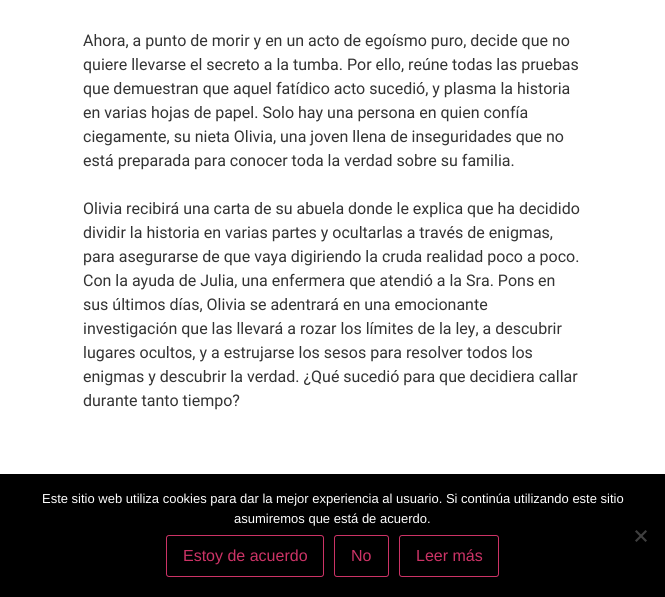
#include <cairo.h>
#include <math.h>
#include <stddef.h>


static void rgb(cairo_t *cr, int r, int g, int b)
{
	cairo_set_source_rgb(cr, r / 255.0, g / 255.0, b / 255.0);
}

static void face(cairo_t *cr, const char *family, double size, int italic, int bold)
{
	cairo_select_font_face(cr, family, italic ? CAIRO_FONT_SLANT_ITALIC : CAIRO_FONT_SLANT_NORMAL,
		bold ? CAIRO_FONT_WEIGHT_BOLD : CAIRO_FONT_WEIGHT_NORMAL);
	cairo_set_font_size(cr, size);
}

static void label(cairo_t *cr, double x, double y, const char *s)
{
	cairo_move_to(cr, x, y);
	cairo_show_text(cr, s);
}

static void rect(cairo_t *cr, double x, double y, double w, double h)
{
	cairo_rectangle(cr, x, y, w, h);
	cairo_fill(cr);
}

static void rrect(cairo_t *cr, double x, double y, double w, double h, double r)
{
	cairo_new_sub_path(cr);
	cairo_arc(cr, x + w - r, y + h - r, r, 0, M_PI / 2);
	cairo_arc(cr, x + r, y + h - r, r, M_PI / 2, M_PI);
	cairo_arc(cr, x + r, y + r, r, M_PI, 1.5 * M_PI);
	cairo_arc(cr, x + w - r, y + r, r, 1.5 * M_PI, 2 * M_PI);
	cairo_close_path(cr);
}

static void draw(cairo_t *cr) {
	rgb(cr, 255, 255, 255);
	cairo_paint(cr);
	face(cr, "Roboto", 16, 0, 0);
	rgb(cr, 51, 51, 51);
	label(cr, 83, 46, "Ahora, a punto de morir y en un acto de egoísmo puro, decide que no");
	label(cr, 83, 70, "quiere llevarse el secreto a la tumba. Por ello, reúne todas las pruebas");
	label(cr, 83, 94, "que demuestran que aquel fatídico acto sucedió, y plasma la historia");
	label(cr, 83, 118, "en varias hojas de papel. Solo hay una persona en quien confía");
	label(cr, 83, 142, "ciegamente, su nieta Olivia, una joven llena de inseguridades que no");
	label(cr, 83, 166, "está preparada para conocer toda la verdad sobre su familia.");
	label(cr, 83, 214, "Olivia recibirá una carta de su abuela donde le explica que ha decidido");
	label(cr, 83, 238, "dividir la historia en varias partes y ocultarlas a través de enigmas,");
	label(cr, 83, 262, "para asegurarse de que vaya digiriendo la cruda realidad poco a poco.");
	label(cr, 83, 286, "Con la ayuda de Julia, una enfermera que atendió a la Sra. Pons en");
	label(cr, 83, 310, "sus últimos días, Olivia se adentrará en una emocionante");
	label(cr, 83, 334, "investigación que las llevará a rozar los límites de la ley, a descubrir");
	label(cr, 83, 358, "lugares ocultos, y a estrujarse los sesos para resolver todos los");
	label(cr, 83, 382, "enigmas y descubrir la verdad. ¿Qué sucedió para que decidiera callar");
	label(cr, 83, 406, "durante tanto tiempo?");
	rgb(cr, 0, 0, 0);
	rect(cr, 0, 474, 665, 123);
	face(cr, "Liberation Sans", 13, 0, 0);
	rgb(cr, 255, 255, 255);
	label(cr, 42, 503, "Este sitio web utiliza cookies para dar la mejor experiencia al usuario. Si continúa utilizando este sitio");
	label(cr, 234, 523, "asumiremos que está de acuerdo.");
	rgb(cr, 64, 64, 64);
	cairo_new_path(cr);
	cairo_move_to(cr, 645.5, 530);
	cairo_line_to(cr, 647, 531.5);
	cairo_line_to(cr, 636.5, 542);
	cairo_line_to(cr, 635, 540.5);
	cairo_close_path(cr);
	cairo_fill(cr);
	cairo_new_path(cr);
	cairo_move_to(cr, 635, 531.5);
	cairo_line_to(cr, 636.5, 530);
	cairo_line_to(cr, 647, 540.5);
	cairo_line_to(cr, 645.5, 542);
	cairo_close_path(cr);
	cairo_fill(cr);
	rrect(cr, 166.5, 535.5, 157, 41, 2.5);
	rgb(cr, 204, 51, 102);
	cairo_set_line_width(cr, 1);
	cairo_stroke(cr);
	face(cr, "Liberation Sans", 16, 0, 0);
	label(cr, 183, 561, "Estoy de acuerdo");
	rrect(cr, 334.5, 535.5, 54, 41, 2.5);
	cairo_stroke(cr);
	label(cr, 351, 561, "No");
	rrect(cr, 399.5, 535.5, 99, 41, 2.5);
	cairo_stroke(cr);
	label(cr, 416, 561, "Leer más");
}

int main(void) {
	cairo_surface_t *surface = cairo_image_surface_create(CAIRO_FORMAT_RGB24, 665, 597);
	cairo_t *cr = cairo_create(surface);
	cairo_font_options_t *options = cairo_font_options_create();
	cairo_font_options_set_hint_metrics(options, CAIRO_HINT_METRICS_OFF);
	cairo_font_options_set_hint_style(options, CAIRO_HINT_STYLE_NONE);
	cairo_set_font_options(cr, options);
	cairo_set_miter_limit(cr, 4);
	draw(cr);
	cairo_surface_write_to_png(surface, "render.png");
	cairo_font_options_destroy(options);
	cairo_destroy(cr);
	cairo_surface_destroy(surface);
	return 0;
}
